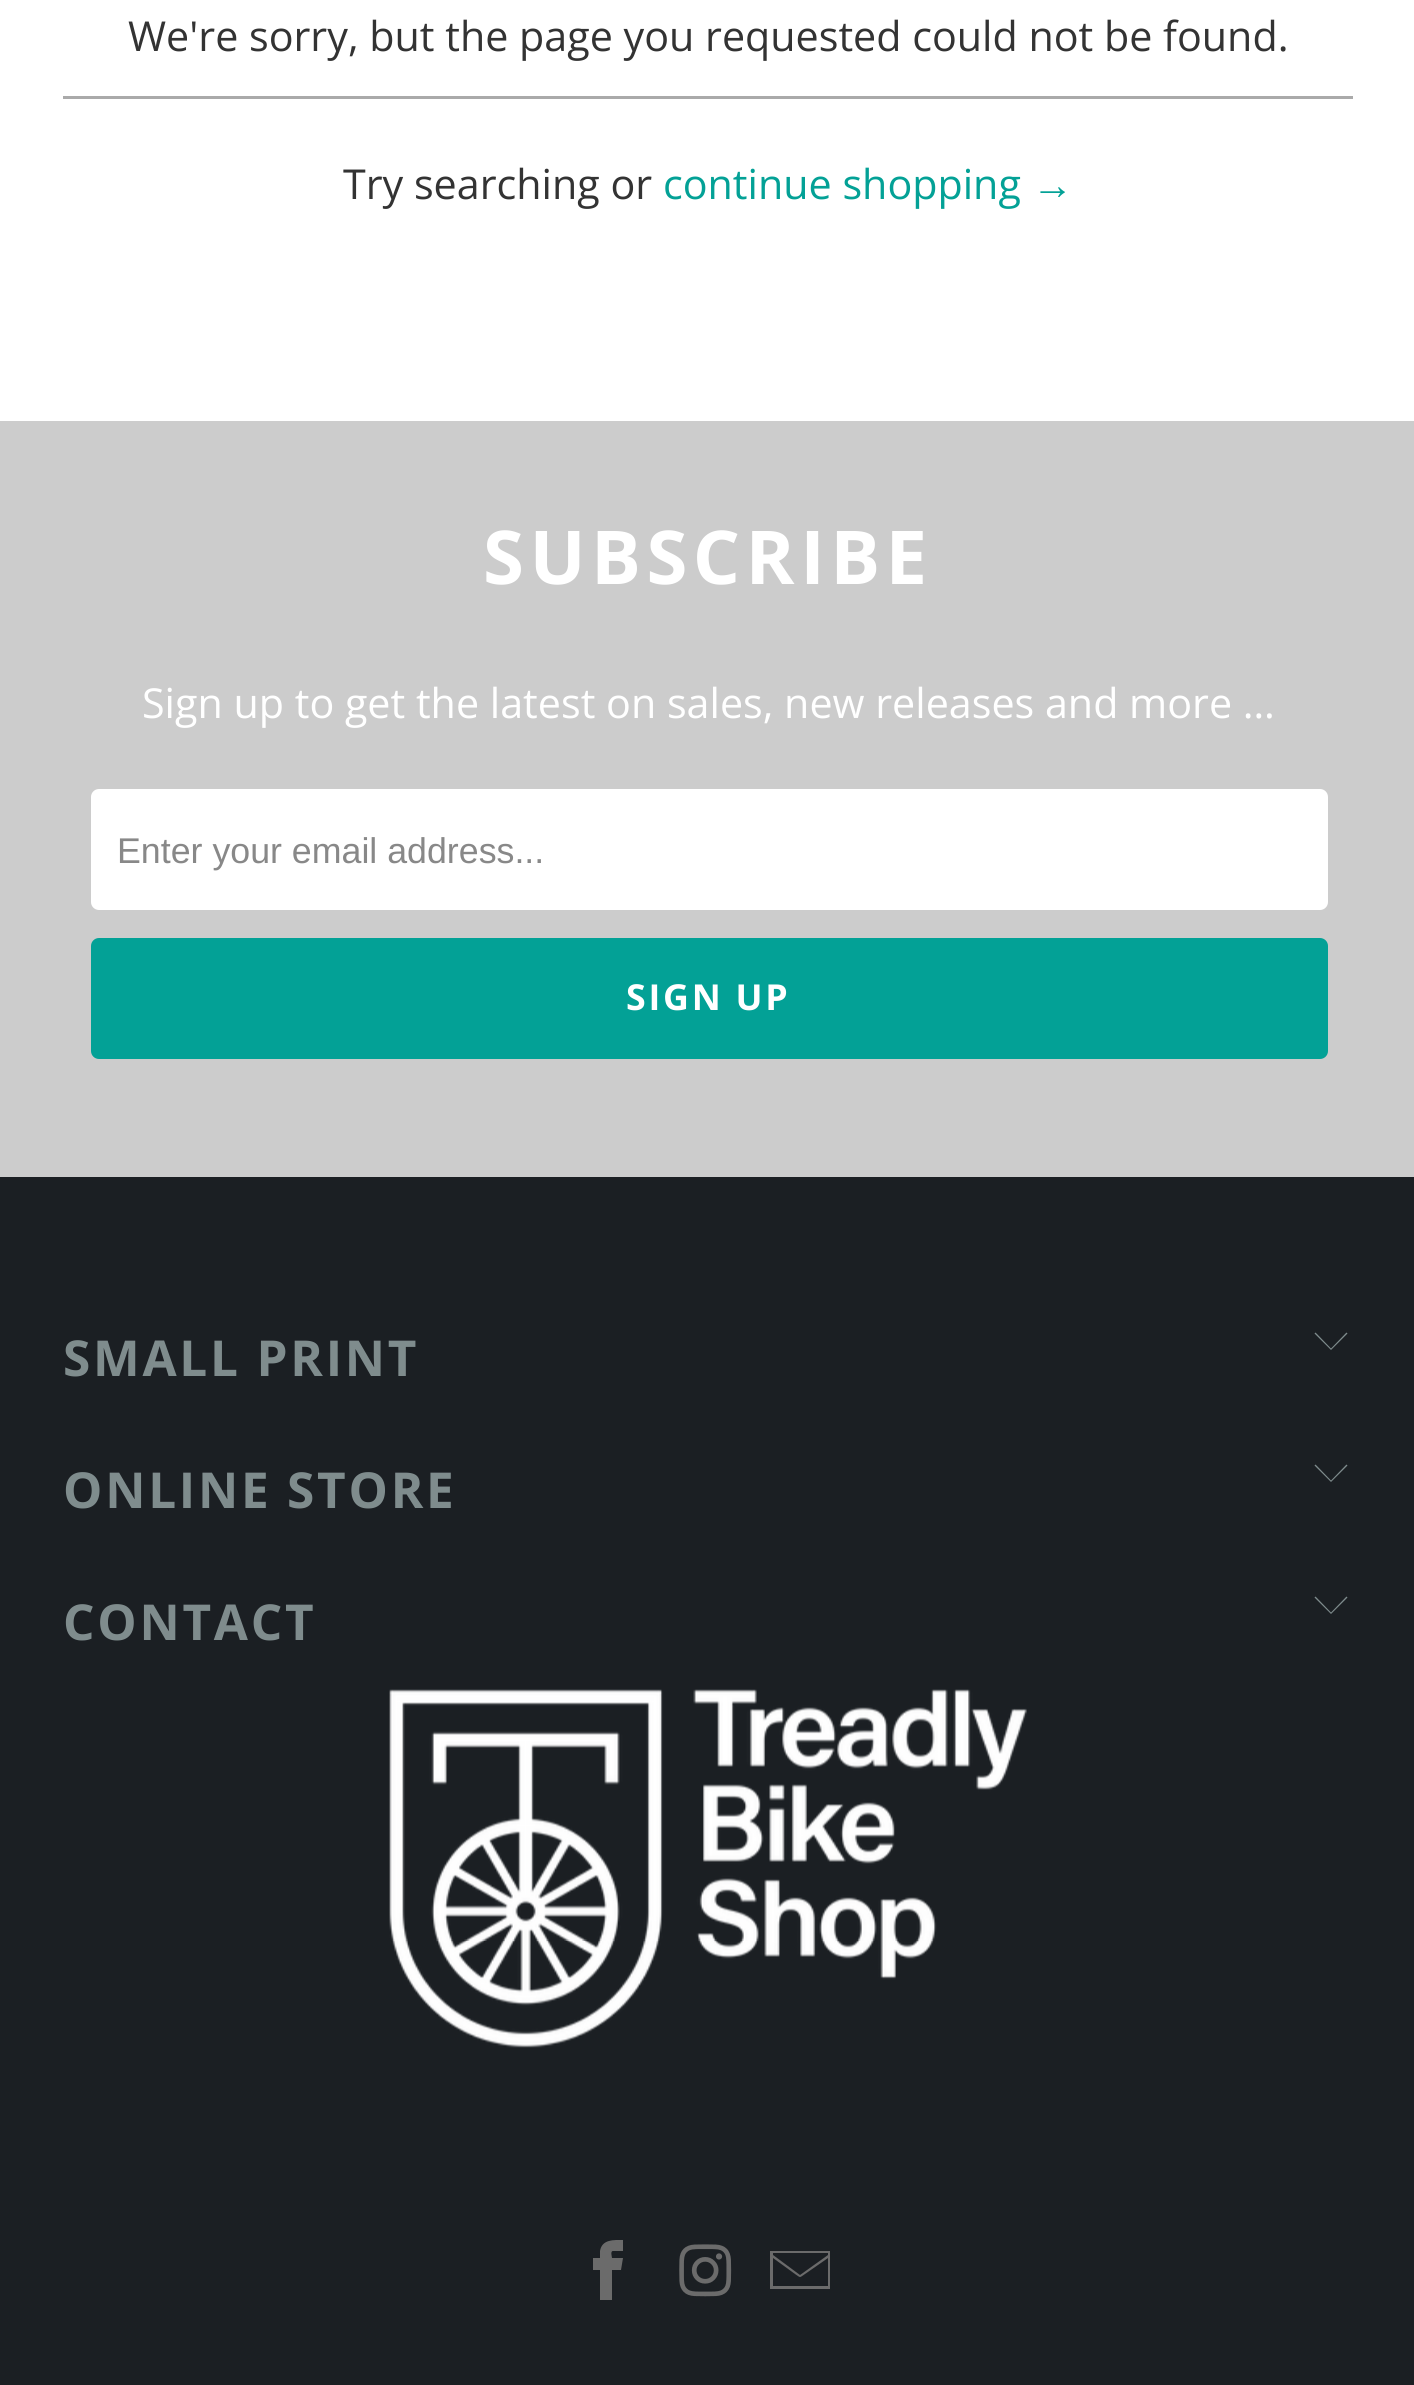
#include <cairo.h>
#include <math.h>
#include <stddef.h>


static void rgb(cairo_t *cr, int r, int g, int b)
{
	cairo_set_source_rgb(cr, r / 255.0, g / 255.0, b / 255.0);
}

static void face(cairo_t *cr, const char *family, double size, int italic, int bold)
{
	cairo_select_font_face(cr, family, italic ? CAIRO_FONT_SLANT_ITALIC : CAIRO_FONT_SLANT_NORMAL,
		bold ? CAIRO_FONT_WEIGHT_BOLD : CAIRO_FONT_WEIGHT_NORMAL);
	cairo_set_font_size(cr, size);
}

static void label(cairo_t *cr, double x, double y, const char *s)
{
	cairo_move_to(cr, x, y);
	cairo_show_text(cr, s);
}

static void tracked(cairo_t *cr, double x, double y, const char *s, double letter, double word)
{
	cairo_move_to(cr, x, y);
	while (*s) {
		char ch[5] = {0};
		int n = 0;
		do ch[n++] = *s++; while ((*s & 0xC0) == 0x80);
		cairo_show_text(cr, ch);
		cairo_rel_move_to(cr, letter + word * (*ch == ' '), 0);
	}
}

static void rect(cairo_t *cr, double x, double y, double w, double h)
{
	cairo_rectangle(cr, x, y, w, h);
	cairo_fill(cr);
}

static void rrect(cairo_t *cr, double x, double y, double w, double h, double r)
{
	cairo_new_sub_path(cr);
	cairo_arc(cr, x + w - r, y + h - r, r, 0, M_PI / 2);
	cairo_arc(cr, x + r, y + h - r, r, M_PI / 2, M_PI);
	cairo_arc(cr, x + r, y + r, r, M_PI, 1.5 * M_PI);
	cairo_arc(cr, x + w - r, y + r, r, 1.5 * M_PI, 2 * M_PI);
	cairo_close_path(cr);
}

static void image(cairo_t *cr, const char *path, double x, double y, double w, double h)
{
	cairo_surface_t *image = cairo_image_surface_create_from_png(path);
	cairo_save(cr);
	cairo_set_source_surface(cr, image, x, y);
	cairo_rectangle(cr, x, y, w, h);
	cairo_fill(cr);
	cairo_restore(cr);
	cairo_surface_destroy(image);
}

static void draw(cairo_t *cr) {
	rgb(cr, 255, 255, 255);
	cairo_paint(cr);
	rgb(cr, 170, 170, 170);
	rect(cr, 63, 96, 1290, 3);
	face(cr, "Open Sans", 41.25, 0, 0);
	rgb(cr, 51, 51, 51);
	label(cr, 128, 51, "We're sorry, but the page you requested could not be found.");
	label(cr, 343, 199, "Try searching or");
	rgb(cr, 3, 161, 150);
	label(cr, 663, 199, "continue shopping");
	face(cr, "Liberation Sans", 41.25, 0, 0);
	label(cr, 1032, 199, "→");
	rgb(cr, 204, 204, 204);
	rect(cr, 0, 421, 1414, 756);
	face(cr, "Open Sans", 74.25, 0, 1);
	rgb(cr, 255, 255, 255);
	tracked(cr, 483, 584, "SUBSCRIBE", 5.5, 0);
	face(cr, "Open Sans", 41.25, 0, 0);
	label(cr, 142, 718, "Sign up to get the latest on sales, new releases and more …");
	rrect(cr, 91, 789, 1237, 121, 8);
	cairo_fill(cr);
	face(cr, "Liberation Sans", 35.75, 0, 0);
	rgb(cr, 136, 136, 136);
	label(cr, 117, 863, "Enter your email address...");
	rgb(cr, 3, 161, 150);
	rrect(cr, 92.5, 939.5, 1234, 118, 6.5);
	cairo_fill_preserve(cr);
	cairo_set_line_width(cr, 3);
	cairo_stroke(cr);
	face(cr, "Open Sans", 35.75, 0, 1);
	rgb(cr, 255, 255, 255);
	tracked(cr, 626, 1010, "SIGN UP", 2.75, 0);
	rgb(cr, 27, 31, 35);
	rect(cr, 0, 1177, 1414, 1208);
	face(cr, "Open Sans", 49.5, 0, 1);
	rgb(cr, 127, 140, 141);
	tracked(cr, 63, 1376, "SMALL PRINT", 2.75, 0);
	cairo_new_path(cr);
	cairo_move_to(cr, 1331, 1350);
	cairo_line_to(cr, 1314.5, 1333.5);
	cairo_line_to(cr, 1315.5, 1332.5);
	cairo_line_to(cr, 1331, 1348.5);
	cairo_line_to(cr, 1346.5, 1332.5);
	cairo_line_to(cr, 1347.5, 1333.5);
	cairo_close_path(cr);
	cairo_fill(cr);
	tracked(cr, 63, 1508, "ONLINE STORE", 2.75, 0);
	cairo_new_path(cr);
	cairo_move_to(cr, 1331, 1482);
	cairo_line_to(cr, 1314.5, 1465.5);
	cairo_line_to(cr, 1315.5, 1464.5);
	cairo_line_to(cr, 1331, 1480.5);
	cairo_line_to(cr, 1346.5, 1464.5);
	cairo_line_to(cr, 1347.5, 1465.5);
	cairo_close_path(cr);
	cairo_fill(cr);
	tracked(cr, 63, 1640, "CONTACT", 2.75, 0);
	cairo_new_path(cr);
	cairo_move_to(cr, 1331, 1614);
	cairo_line_to(cr, 1314.5, 1597.5);
	cairo_line_to(cr, 1315.5, 1596.5);
	cairo_line_to(cr, 1331, 1612.5);
	cairo_line_to(cr, 1346.5, 1596.5);
	cairo_line_to(cr, 1347.5, 1597.5);
	cairo_close_path(cr);
	cairo_fill(cr);
	image(cr, "image0.png", 389, 1689, 638, 359);
	rgb(cr, 107, 107, 107);
	cairo_new_path(cr);
	cairo_move_to(cr, 613, 2251);
	cairo_line_to(cr, 623, 2251);
	cairo_line_to(cr, 623, 2240);
	cairo_curve_to(cr, 614, 2240, 602, 2239, 600, 2251);
	cairo_line_to(cr, 600, 2258);
	cairo_line_to(cr, 593, 2258);
	cairo_line_to(cr, 593, 2270);
	cairo_line_to(cr, 600, 2270);
	cairo_line_to(cr, 600, 2300);
	cairo_line_to(cr, 612, 2300);
	cairo_line_to(cr, 612, 2270);
	cairo_line_to(cr, 621, 2270);
	cairo_line_to(cr, 623, 2258);
	cairo_line_to(cr, 612, 2258);
	cairo_curve_to(cr, 612, 2257, 610, 2251, 613, 2251);
	cairo_close_path(cr);
	cairo_fill(cr);
	image(cr, "image1.png", 679, 2244, 53, 53);
	cairo_new_path(cr);
	cairo_move_to(cr, 770, 2251);
	cairo_line_to(cr, 770, 2289);
	cairo_line_to(cr, 830, 2289);
	cairo_line_to(cr, 830, 2251);
	cairo_close_path(cr);
	cairo_move_to(cr, 828, 2253);
	cairo_line_to(cr, 828, 2255);
	cairo_line_to(cr, 800, 2275);
	cairo_line_to(cr, 773, 2255);
	cairo_line_to(cr, 773, 2253);
	cairo_close_path(cr);
	cairo_move_to(cr, 773, 2286);
	cairo_line_to(cr, 773, 2258);
	cairo_line_to(cr, 795, 2274);
	cairo_curve_to(cr, 801, 2278, 799, 2278, 805, 2274);
	cairo_line_to(cr, 828, 2258);
	cairo_line_to(cr, 828, 2286);
	cairo_close_path(cr);
	cairo_fill(cr);
}

int main(void) {
	cairo_surface_t *surface = cairo_image_surface_create(CAIRO_FORMAT_RGB24, 1414, 2385);
	cairo_t *cr = cairo_create(surface);
	cairo_font_options_t *options = cairo_font_options_create();
	cairo_font_options_set_hint_metrics(options, CAIRO_HINT_METRICS_OFF);
	cairo_font_options_set_hint_style(options, CAIRO_HINT_STYLE_NONE);
	cairo_set_font_options(cr, options);
	cairo_set_miter_limit(cr, 4);
	draw(cr);
	cairo_surface_write_to_png(surface, "render.png");
	cairo_font_options_destroy(options);
	cairo_destroy(cr);
	cairo_surface_destroy(surface);
	return 0;
}
